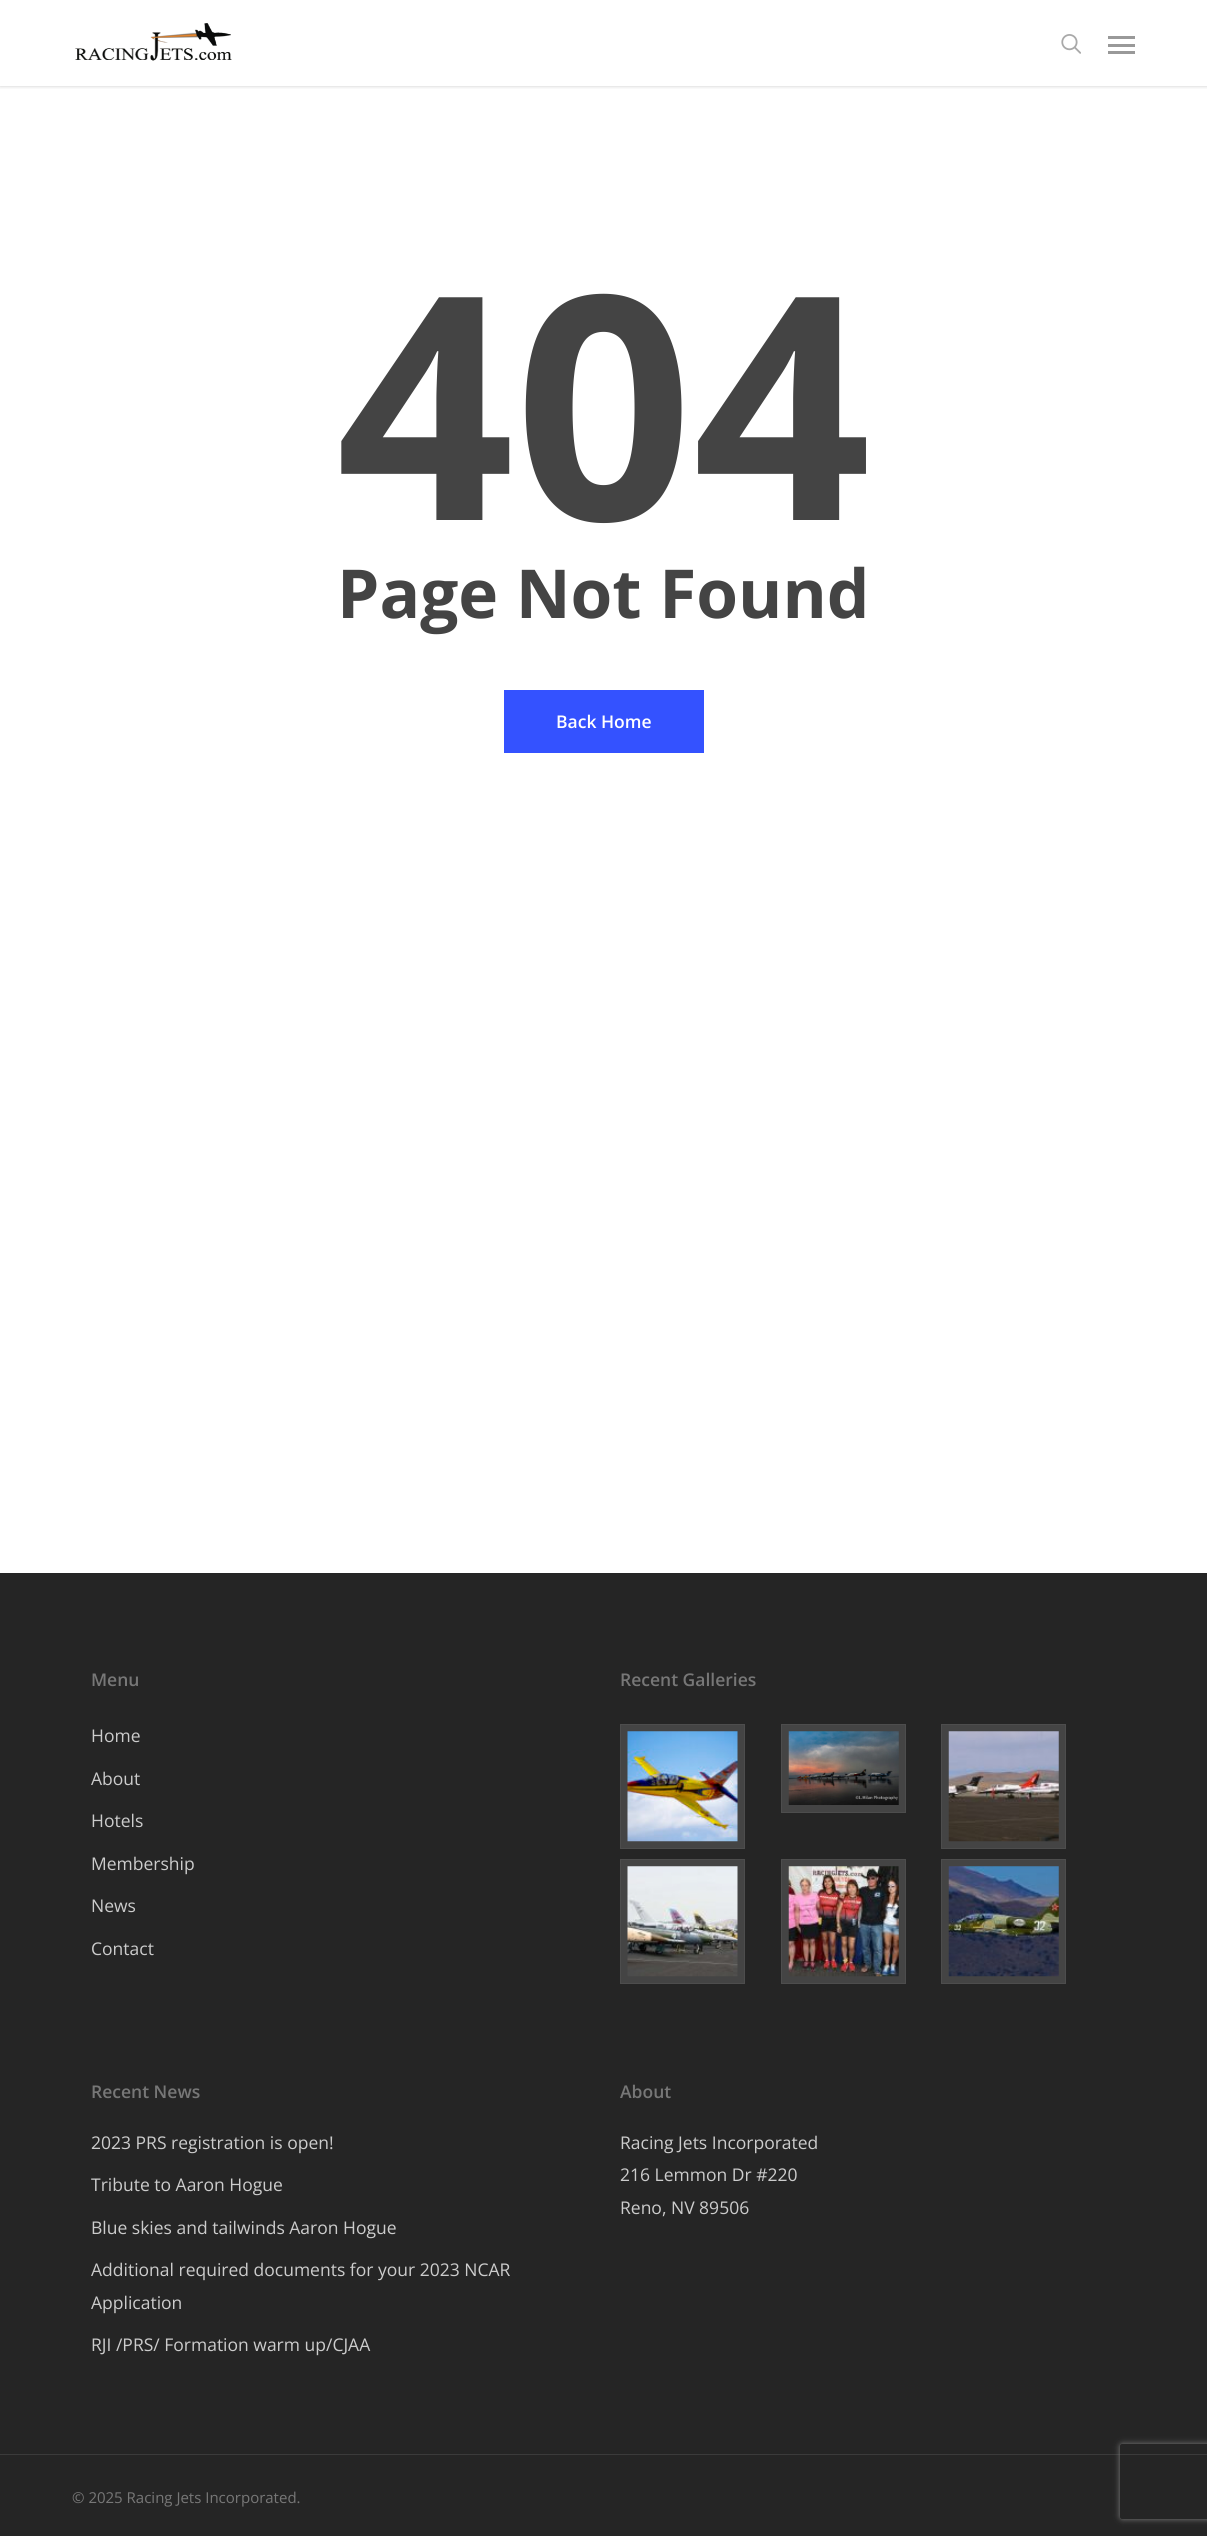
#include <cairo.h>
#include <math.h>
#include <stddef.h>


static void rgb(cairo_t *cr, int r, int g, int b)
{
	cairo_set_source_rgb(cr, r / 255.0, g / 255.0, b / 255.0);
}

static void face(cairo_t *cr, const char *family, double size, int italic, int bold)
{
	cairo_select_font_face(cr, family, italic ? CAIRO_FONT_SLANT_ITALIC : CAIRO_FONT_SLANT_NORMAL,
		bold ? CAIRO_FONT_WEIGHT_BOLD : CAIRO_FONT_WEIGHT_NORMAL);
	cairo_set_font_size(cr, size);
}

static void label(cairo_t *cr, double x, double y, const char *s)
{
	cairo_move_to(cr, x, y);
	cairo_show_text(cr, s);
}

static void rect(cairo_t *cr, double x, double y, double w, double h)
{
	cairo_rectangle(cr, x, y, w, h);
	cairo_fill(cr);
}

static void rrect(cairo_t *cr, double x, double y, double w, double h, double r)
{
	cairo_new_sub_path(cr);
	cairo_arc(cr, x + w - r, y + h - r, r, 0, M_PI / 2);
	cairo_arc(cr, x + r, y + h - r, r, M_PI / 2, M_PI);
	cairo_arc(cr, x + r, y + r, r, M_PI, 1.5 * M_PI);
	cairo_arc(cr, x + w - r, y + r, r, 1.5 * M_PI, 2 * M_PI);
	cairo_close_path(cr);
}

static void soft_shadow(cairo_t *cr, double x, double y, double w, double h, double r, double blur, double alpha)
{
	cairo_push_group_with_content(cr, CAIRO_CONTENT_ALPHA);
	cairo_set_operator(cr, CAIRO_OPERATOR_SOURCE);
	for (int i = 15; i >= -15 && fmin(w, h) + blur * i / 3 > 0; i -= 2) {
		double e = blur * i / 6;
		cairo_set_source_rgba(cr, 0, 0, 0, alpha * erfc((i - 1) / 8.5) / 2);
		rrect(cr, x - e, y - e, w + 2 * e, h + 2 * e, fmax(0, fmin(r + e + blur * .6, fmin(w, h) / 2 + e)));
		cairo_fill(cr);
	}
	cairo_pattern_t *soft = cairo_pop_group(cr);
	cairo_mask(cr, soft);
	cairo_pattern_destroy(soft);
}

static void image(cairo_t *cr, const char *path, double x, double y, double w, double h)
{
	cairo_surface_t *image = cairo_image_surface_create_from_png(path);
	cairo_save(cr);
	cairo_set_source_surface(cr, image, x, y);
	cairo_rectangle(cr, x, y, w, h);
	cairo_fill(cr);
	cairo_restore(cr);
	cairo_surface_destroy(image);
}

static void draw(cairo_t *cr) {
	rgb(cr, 255, 255, 255);
	cairo_paint(cr);
	cairo_save(cr);
	cairo_rectangle(cr, 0, 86, 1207, 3);
	cairo_clip(cr);
	rgb(cr, 0, 0, 0);
	soft_shadow(cr, 0, 0, 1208, 86, 0, 2, 0.22);
	cairo_restore(cr);
	image(cr, "image0.png", 75, 23, 157, 38);
	image(cr, "image1.png", 1061, 34, 20, 20);
	rgb(cr, 153, 153, 153);
	rect(cr, 1108, 36, 27, 3);
	rect(cr, 1108, 51, 27, 3);
	rect(cr, 1108, 44, 27, 3);
	face(cr, "Open Sans", 312, 0, 1);
	rgb(cr, 68, 68, 68);
	label(cr, 336, 520, "404");
	face(cr, "Open Sans", 67.5, 0, 1);
	label(cr, 337, 618, "Page Not Found");
	rgb(cr, 52, 82, 255);
	rect(cr, 504, 690, 200, 63);
	face(cr, "Open Sans SemiBold", 17.5, 0, 0);
	rgb(cr, 255, 255, 255);
	label(cr, 556, 728, "Back Home");
	rgb(cr, 37, 37, 37);
	rect(cr, 0, 1573, 1207, 963);
	rgb(cr, 119, 119, 119);
	label(cr, 91, 1686, "Menu");
	face(cr, "Open Sans", 17.5, 0, 0);
	rgb(cr, 204, 204, 204);
	label(cr, 91, 1742, "Home");
	label(cr, 91, 1785, "About");
	label(cr, 91, 1827, "Hotels");
	label(cr, 91, 1870, "Membership");
	label(cr, 91, 1912, "News");
	label(cr, 91, 1955, "Contact");
	face(cr, "Open Sans SemiBold", 17.5, 0, 0);
	rgb(cr, 119, 119, 119);
	label(cr, 620, 1686, "Recent Galleries");
	rgb(cr, 68, 68, 68);
	cairo_rectangle(cr, 620.5, 1724.5, 124, 124);
	cairo_fill_preserve(cr);
	rgb(cr, 77, 77, 77);
	cairo_set_line_width(cr, 1);
	cairo_stroke(cr);
	image(cr, "image2.png", 627, 1731, 111, 111);
	rgb(cr, 68, 68, 68);
	cairo_rectangle(cr, 781.5, 1724.5, 124, 88);
	cairo_fill_preserve(cr);
	rgb(cr, 77, 77, 77);
	cairo_stroke(cr);
	image(cr, "image3.png", 788, 1731, 111, 74);
	rgb(cr, 68, 68, 68);
	cairo_rectangle(cr, 941.5, 1724.5, 124, 124);
	cairo_fill_preserve(cr);
	rgb(cr, 77, 77, 77);
	cairo_stroke(cr);
	image(cr, "image4.png", 948, 1731, 111, 111);
	rgb(cr, 68, 68, 68);
	cairo_rectangle(cr, 620.5, 1859.5, 124, 124);
	cairo_fill_preserve(cr);
	rgb(cr, 77, 77, 77);
	cairo_stroke(cr);
	image(cr, "image5.png", 627, 1866, 111, 111);
	rgb(cr, 68, 68, 68);
	cairo_rectangle(cr, 781.5, 1859.5, 124, 124);
	cairo_fill_preserve(cr);
	rgb(cr, 77, 77, 77);
	cairo_stroke(cr);
	image(cr, "image6.png", 788, 1866, 111, 111);
	rgb(cr, 68, 68, 68);
	cairo_rectangle(cr, 941.5, 1859.5, 124, 124);
	cairo_fill_preserve(cr);
	rgb(cr, 77, 77, 77);
	cairo_stroke(cr);
	image(cr, "image7.png", 948, 1866, 111, 111);
	rgb(cr, 119, 119, 119);
	label(cr, 91, 2098, "Recent News");
	face(cr, "Open Sans", 17.5, 0, 0);
	rgb(cr, 204, 204, 204);
	label(cr, 91, 2149, "2023 PRS registration is open!");
	label(cr, 91, 2191, "Tribute to Aaron Hogue");
	label(cr, 91, 2234, "Blue skies and tailwinds Aaron Hogue");
	label(cr, 91, 2276, "Additional required documents for your 2023 NCAR");
	label(cr, 91, 2309, "Application");
	label(cr, 91, 2351, "RJI /PRS/ Formation warm up/CJAA");
	face(cr, "Open Sans SemiBold", 17.5, 0, 0);
	rgb(cr, 119, 119, 119);
	label(cr, 620, 2098, "About");
	face(cr, "Open Sans", 17.5, 0, 0);
	rgb(cr, 204, 204, 204);
	label(cr, 620, 2149, "Racing Jets Incorporated");
	label(cr, 620, 2181, "216 Lemmon Dr #220");
	label(cr, 620, 2214, "Reno, NV 89506");
	rgb(cr, 59, 59, 59);
	rect(cr, 0, 2454, 1207, 1);
	face(cr, "Open Sans", 15, 0, 0);
	rgb(cr, 119, 119, 119);
	label(cr, 72, 2503, "© 2025 Racing Jets Incorporated.");
	cairo_save(cr);
	cairo_set_fill_rule(cr, CAIRO_FILL_RULE_EVEN_ODD);
	cairo_new_path(cr);
	cairo_move_to(cr, 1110, 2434);
	cairo_line_to(cr, 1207, 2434);
	cairo_line_to(cr, 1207, 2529);
	cairo_line_to(cr, 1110, 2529);
	cairo_close_path(cr);
	cairo_move_to(cr, 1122.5, 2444);
	cairo_line_to(cr, 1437.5, 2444);
	cairo_curve_to(cr, 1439, 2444, 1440, 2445, 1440, 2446.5);
	cairo_line_to(cr, 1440, 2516.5);
	cairo_curve_to(cr, 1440, 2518, 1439, 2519, 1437.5, 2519);
	cairo_line_to(cr, 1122.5, 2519);
	cairo_curve_to(cr, 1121, 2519, 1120, 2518, 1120, 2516.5);
	cairo_line_to(cr, 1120, 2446.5);
	cairo_curve_to(cr, 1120, 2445, 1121, 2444, 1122.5, 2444);
	cairo_close_path(cr);
	cairo_clip(cr);
	rgb(cr, 128, 128, 128);
	soft_shadow(cr, 1120, 2444, 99, 75, 2.5, 3, 1);
	cairo_restore(cr);
}

int main(void) {
	cairo_surface_t *surface = cairo_image_surface_create(CAIRO_FORMAT_RGB24, 1207, 2536);
	cairo_t *cr = cairo_create(surface);
	cairo_font_options_t *options = cairo_font_options_create();
	cairo_font_options_set_hint_metrics(options, CAIRO_HINT_METRICS_OFF);
	cairo_font_options_set_hint_style(options, CAIRO_HINT_STYLE_NONE);
	cairo_set_font_options(cr, options);
	cairo_set_miter_limit(cr, 4);
	draw(cr);
	cairo_surface_write_to_png(surface, "render.png");
	cairo_font_options_destroy(options);
	cairo_destroy(cr);
	cairo_surface_destroy(surface);
	return 0;
}
